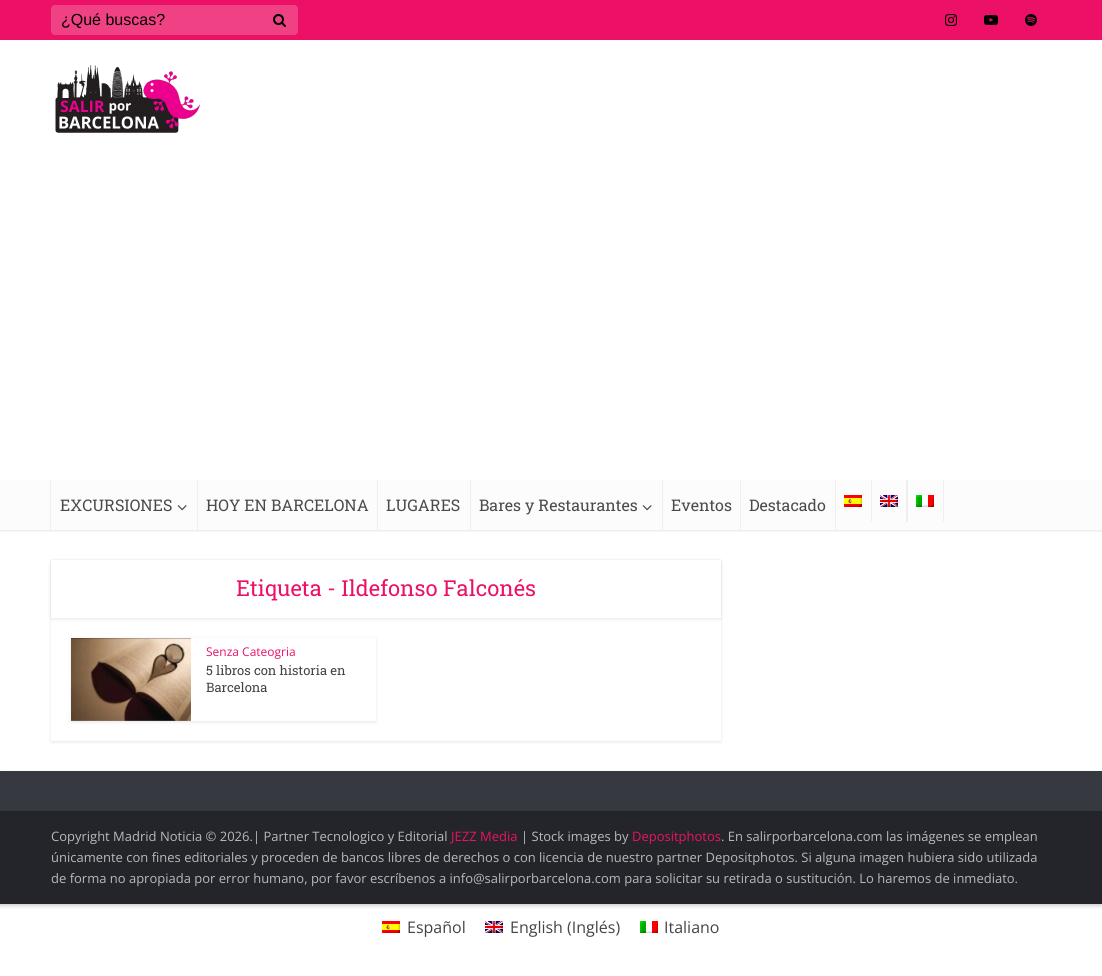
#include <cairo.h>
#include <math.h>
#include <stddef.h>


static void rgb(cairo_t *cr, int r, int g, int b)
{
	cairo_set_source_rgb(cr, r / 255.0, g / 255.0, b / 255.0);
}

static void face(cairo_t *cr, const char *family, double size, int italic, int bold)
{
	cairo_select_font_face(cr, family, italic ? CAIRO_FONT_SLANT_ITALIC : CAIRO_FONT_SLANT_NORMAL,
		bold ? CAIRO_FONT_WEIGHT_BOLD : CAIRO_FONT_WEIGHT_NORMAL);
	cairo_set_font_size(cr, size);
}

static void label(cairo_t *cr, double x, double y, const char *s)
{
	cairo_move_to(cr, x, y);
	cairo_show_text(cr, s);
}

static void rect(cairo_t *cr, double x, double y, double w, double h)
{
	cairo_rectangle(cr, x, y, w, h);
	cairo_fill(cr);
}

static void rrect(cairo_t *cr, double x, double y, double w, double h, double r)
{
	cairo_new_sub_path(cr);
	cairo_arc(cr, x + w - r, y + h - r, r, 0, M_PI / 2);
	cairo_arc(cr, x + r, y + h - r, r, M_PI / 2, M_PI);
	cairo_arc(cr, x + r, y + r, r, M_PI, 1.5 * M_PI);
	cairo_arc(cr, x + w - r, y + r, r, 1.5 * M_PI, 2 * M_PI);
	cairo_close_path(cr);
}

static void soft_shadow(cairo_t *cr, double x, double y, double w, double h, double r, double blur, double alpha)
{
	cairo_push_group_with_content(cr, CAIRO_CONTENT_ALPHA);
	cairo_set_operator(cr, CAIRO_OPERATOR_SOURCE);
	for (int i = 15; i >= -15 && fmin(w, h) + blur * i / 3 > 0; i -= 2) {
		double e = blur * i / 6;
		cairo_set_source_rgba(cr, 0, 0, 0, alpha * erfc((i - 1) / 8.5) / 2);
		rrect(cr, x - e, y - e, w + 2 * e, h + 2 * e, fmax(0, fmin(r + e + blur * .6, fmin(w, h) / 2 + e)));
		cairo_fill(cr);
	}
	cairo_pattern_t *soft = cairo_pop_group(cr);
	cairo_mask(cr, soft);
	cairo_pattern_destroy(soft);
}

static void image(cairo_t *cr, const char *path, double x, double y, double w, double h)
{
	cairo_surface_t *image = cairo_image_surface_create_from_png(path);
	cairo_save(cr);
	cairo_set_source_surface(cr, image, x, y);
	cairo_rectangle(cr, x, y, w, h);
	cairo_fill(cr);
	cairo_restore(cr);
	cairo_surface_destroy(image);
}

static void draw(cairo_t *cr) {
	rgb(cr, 255, 255, 255);
	cairo_paint(cr);
	cairo_save(cr);
	cairo_rectangle(cr, 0, 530, 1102, 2);
	cairo_clip(cr);
	rgb(cr, 0, 0, 0);
	soft_shadow(cr, 0, 1, 1102, 530, 0, 1.5, 0.1);
	cairo_restore(cr);
	rgb(cr, 236, 17, 102);
	rect(cr, 0, 0, 1102, 40);
	rgb(cr, 240, 65, 133);
	rrect(cr, 51, 5, 247, 30, 4);
	cairo_fill(cr);
	face(cr, "Liberation Sans", 16, 0, 0);
	rgb(cr, 0, 0, 0);
	label(cr, 61, 25, "¿Qué buscas?");
	image(cr, "image0.png", 273, 14, 13, 13);
	image(cr, "image1.png", 945, 14, 12, 12);
	image(cr, "image2.png", 984, 15, 14, 10);
	image(cr, "image3.png", 1025, 14, 12, 12);
	image(cr, "image4.png", 55, 65, 145, 68);
	rgb(cr, 252, 252, 252);
	rect(cr, 0, 480, 1102, 50);
	rgb(cr, 239, 239, 239);
	rect(cr, 197, 480, 1, 50);
	rect(cr, 50, 480, 1, 50);
	face(cr, "Roboto Slab", 16, 0, 0);
	rgb(cr, 74, 74, 74);
	label(cr, 60, 511, "EXCURSIONES");
	image(cr, "image5.png", 177, 505, 10, 6);
	rgb(cr, 239, 239, 239);
	rect(cr, 377, 480, 1, 50);
	rgb(cr, 74, 74, 74);
	label(cr, 206, 511, "HOY EN BARCELONA");
	rgb(cr, 239, 239, 239);
	rect(cr, 470, 480, 1, 50);
	rgb(cr, 74, 74, 74);
	label(cr, 386, 511, "LUGARES");
	rgb(cr, 239, 239, 239);
	rect(cr, 662, 480, 1, 50);
	rgb(cr, 74, 74, 74);
	label(cr, 479, 511, "Bares y Restaurantes");
	image(cr, "image5.png", 642, 505, 10, 6);
	rgb(cr, 239, 239, 239);
	rect(cr, 740, 480, 1, 50);
	rgb(cr, 74, 74, 74);
	label(cr, 671, 511, "Eventos");
	rgb(cr, 239, 239, 239);
	rect(cr, 835, 480, 1, 50);
	rgb(cr, 74, 74, 74);
	label(cr, 749, 511, "Destacado");
	rgb(cr, 239, 239, 239);
	rect(cr, 871, 480, 1, 42);
	image(cr, "image6.png", 844, 495, 18, 12);
	rect(cr, 906, 480, 2, 42);
	image(cr, "image7.png", 880, 495, 18, 12);
	rect(cr, 943, 480, 1, 42);
	image(cr, "image8.png", 916, 495, 18, 12);
	cairo_save(cr);
	cairo_set_fill_rule(cr, CAIRO_FILL_RULE_EVEN_ODD);
	cairo_new_path(cr);
	cairo_move_to(cr, 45, 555);
	cairo_line_to(cr, 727, 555);
	cairo_line_to(cr, 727, 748);
	cairo_line_to(cr, 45, 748);
	cairo_close_path(cr);
	cairo_move_to(cr, 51, 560);
	cairo_line_to(cr, 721, 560);
	cairo_line_to(cr, 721, 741);
	cairo_line_to(cr, 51, 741);
	cairo_close_path(cr);
	cairo_clip(cr);
	rgb(cr, 0, 0, 0);
	soft_shadow(cr, 51, 561, 670, 181, 0, 1.5, 0.1);
	cairo_restore(cr);
	cairo_save(cr);
	cairo_set_fill_rule(cr, CAIRO_FILL_RULE_EVEN_ODD);
	cairo_new_path(cr);
	cairo_move_to(cr, 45, 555);
	cairo_line_to(cr, 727, 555);
	cairo_line_to(cr, 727, 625);
	cairo_line_to(cr, 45, 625);
	cairo_close_path(cr);
	cairo_move_to(cr, 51, 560);
	cairo_line_to(cr, 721, 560);
	cairo_line_to(cr, 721, 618);
	cairo_line_to(cr, 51, 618);
	cairo_close_path(cr);
	cairo_clip(cr);
	rgb(cr, 0, 0, 0);
	soft_shadow(cr, 51, 561, 670, 58, 0, 1.5, 0.1);
	cairo_restore(cr);
	face(cr, "Roboto Slab", 22, 0, 0);
	rgb(cr, 236, 17, 102);
	label(cr, 236, 596, "Etiqueta - Ildefonso Falconés");
	cairo_save(cr);
	cairo_set_fill_rule(cr, CAIRO_FILL_RULE_EVEN_ODD);
	cairo_new_path(cr);
	cairo_move_to(cr, 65, 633);
	cairo_line_to(cr, 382, 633);
	cairo_line_to(cr, 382, 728);
	cairo_line_to(cr, 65, 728);
	cairo_close_path(cr);
	cairo_move_to(cr, 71, 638);
	cairo_line_to(cr, 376, 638);
	cairo_line_to(cr, 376, 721);
	cairo_line_to(cr, 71, 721);
	cairo_close_path(cr);
	cairo_clip(cr);
	rgb(cr, 0, 0, 0);
	soft_shadow(cr, 71, 639, 305, 83, 0, 1.5, 0.1);
	cairo_restore(cr);
	image(cr, "image9.png", 71, 638, 120, 83);
	face(cr, "Open Sans", 12, 0, 0);
	label(cr, 206, 656, "Senza Cateogria");
	face(cr, "Roboto Slab", 13, 0, 0);
	rgb(cr, 68, 68, 68);
	label(cr, 206, 675, "5 libros con historia en");
	label(cr, 206, 692, "Barcelona");
	rgb(cr, 0, 0, 0);
	soft_shadow(cr, 0, 773, 1102, 133, 0, 2, 0.2);
	rgb(cr, 55, 57, 65);
	rect(cr, 0, 771, 1102, 40);
	rgb(cr, 36, 37, 42);
	rect(cr, 0, 811, 1102, 93);
	face(cr, "Open Sans", 13, 0, 0);
	rgb(cr, 185, 185, 187);
	label(cr, 51, 841, "Copyright Madrid Noticia © 2026.| Partner Tecnologico y Editorial");
	rgb(cr, 236, 17, 102);
	label(cr, 451, 841, "JEZZ Media");
	rgb(cr, 185, 185, 187);
	label(cr, 521, 841, "| Stock images by");
	rgb(cr, 236, 17, 102);
	label(cr, 632, 841, "Depositphotos");
	rgb(cr, 185, 185, 187);
	label(cr, 721, 841, ". En salirporbarcelona.com las imágenes se emplean");
	label(cr, 51, 862, "únicamente con fines editoriales y proceden de bancos libres de derechos o con licencia de nuestro partner Depositphotos. Si alguna imagen hubiera sido utilizada");
	label(cr, 51, 883, "de forma no apropiada por error humano, por favor escríbenos a info@salirporbarcelona.com para solicitar su retirada o sustitución. Lo haremos de inmediato.");
	image(cr, "image6.png", 382, 921, 18, 12);
	face(cr, "Open Sans", 16, 0, 0);
	rgb(cr, 68, 68, 68);
	label(cr, 407, 933, "Español");
	image(cr, "image7.png", 485, 921, 18, 12);
	label(cr, 510, 933, "English (Inglés)");
	image(cr, "image8.png", 640, 921, 18, 12);
	label(cr, 664, 933, "Italiano");
}

int main(void) {
	cairo_surface_t *surface = cairo_image_surface_create(CAIRO_FORMAT_RGB24, 1102, 976);
	cairo_t *cr = cairo_create(surface);
	cairo_font_options_t *options = cairo_font_options_create();
	cairo_font_options_set_hint_metrics(options, CAIRO_HINT_METRICS_OFF);
	cairo_font_options_set_hint_style(options, CAIRO_HINT_STYLE_NONE);
	cairo_set_font_options(cr, options);
	cairo_set_miter_limit(cr, 4);
	draw(cr);
	cairo_surface_write_to_png(surface, "render.png");
	cairo_font_options_destroy(options);
	cairo_destroy(cr);
	cairo_surface_destroy(surface);
	return 0;
}
